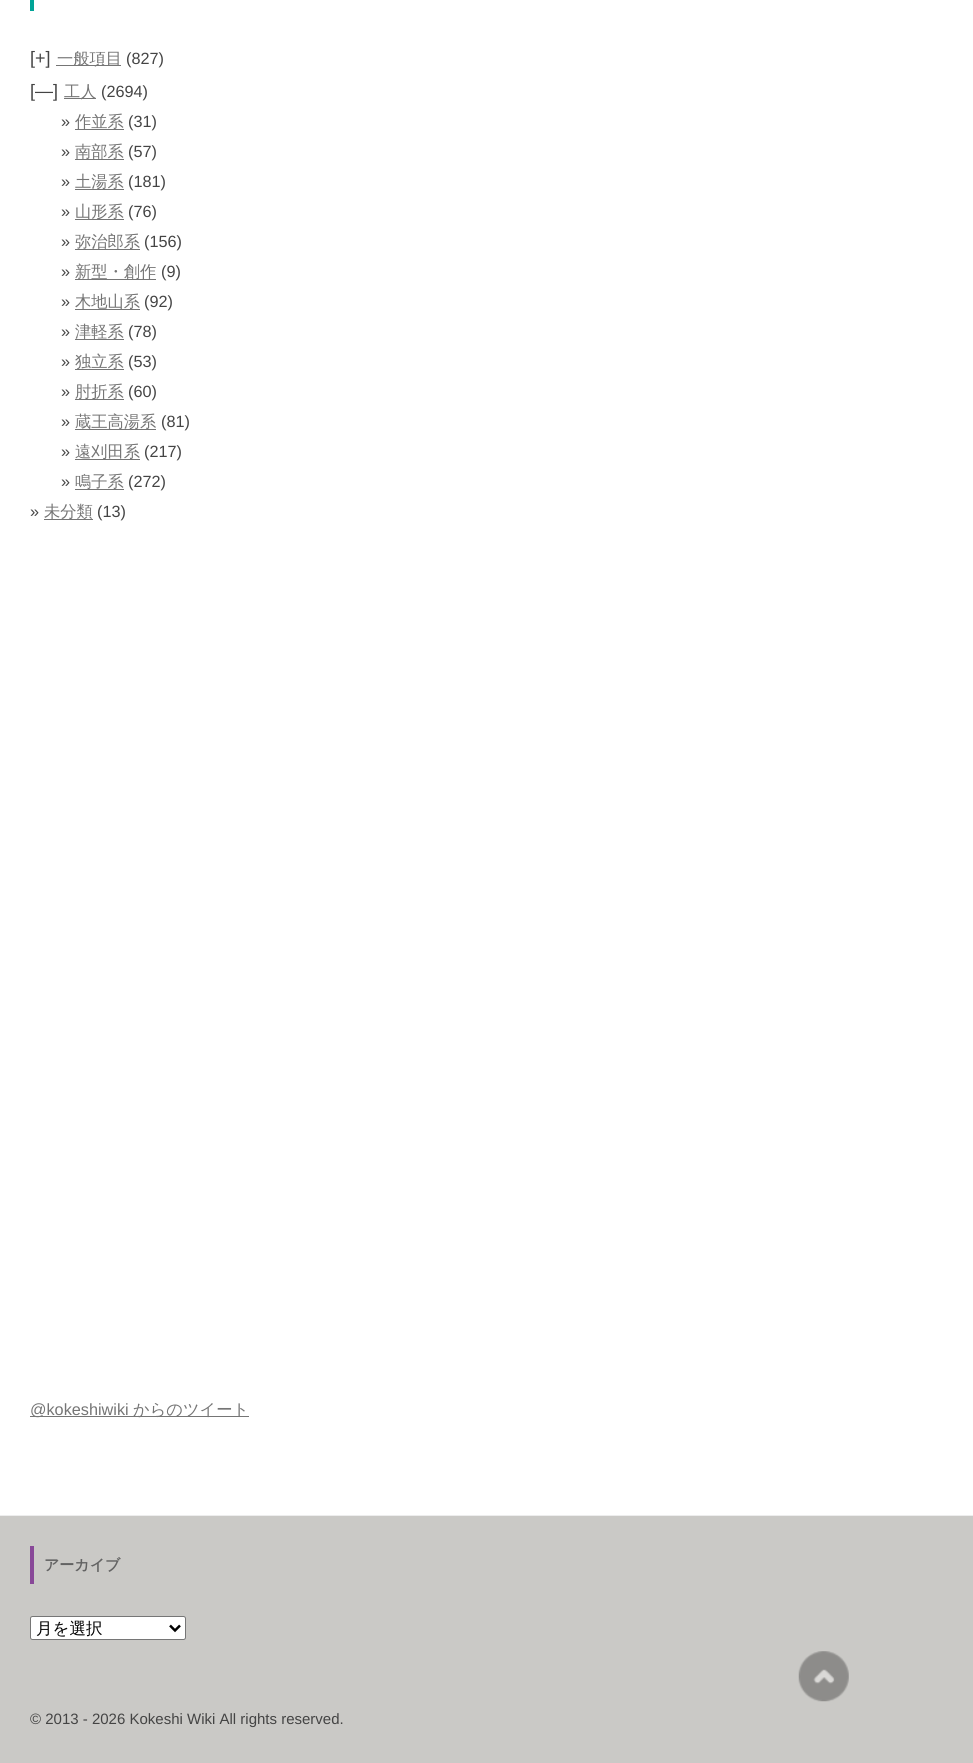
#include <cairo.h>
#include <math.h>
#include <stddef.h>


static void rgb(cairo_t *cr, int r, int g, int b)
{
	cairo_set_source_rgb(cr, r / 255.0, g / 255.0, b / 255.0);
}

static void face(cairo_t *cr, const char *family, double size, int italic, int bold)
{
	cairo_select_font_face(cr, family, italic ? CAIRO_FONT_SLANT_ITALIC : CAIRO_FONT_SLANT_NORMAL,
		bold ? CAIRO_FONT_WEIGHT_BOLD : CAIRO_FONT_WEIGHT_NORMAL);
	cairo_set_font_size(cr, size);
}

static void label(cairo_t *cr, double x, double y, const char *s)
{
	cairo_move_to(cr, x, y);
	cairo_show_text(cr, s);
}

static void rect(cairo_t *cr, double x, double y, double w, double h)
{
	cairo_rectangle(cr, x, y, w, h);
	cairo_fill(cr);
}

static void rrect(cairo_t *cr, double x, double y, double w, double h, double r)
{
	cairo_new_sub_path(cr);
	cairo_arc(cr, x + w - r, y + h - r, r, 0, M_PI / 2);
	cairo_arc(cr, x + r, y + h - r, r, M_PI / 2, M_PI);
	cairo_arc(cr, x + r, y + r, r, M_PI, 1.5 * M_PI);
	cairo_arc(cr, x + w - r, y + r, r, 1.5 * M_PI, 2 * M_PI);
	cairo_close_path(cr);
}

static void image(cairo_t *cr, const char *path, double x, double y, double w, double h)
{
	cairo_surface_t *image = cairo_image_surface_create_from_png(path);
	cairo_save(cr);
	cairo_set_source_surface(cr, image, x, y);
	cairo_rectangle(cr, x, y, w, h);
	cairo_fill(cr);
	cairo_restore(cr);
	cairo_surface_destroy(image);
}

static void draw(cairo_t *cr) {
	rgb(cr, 255, 255, 255);
	cairo_paint(cr);
	rgb(cr, 0, 164, 151);
	rect(cr, 30, 0, 4, 11);
	face(cr, "Liberation Sans", 18, 0, 0);
	rgb(cr, 68, 68, 68);
	label(cr, 30, 64, "[+]");
	rgb(cr, 117, 117, 117);
	rect(cr, 56, 65, 65, 1);
	face(cr, "WenQuanYi Zen Hei Medium", 16.25, 0, 0);
	label(cr, 57, 64, "一般項目");
	face(cr, "Liberation Sans", 16.25, 0, 0);
	rgb(cr, 68, 68, 68);
	label(cr, 126, 64, "(827)");
	face(cr, "Liberation Sans", 18, 0, 0);
	label(cr, 30, 97, "[—]");
	rgb(cr, 117, 117, 117);
	rect(cr, 64, 98, 32, 1);
	face(cr, "WenQuanYi Zen Hei Medium", 16.25, 0, 0);
	label(cr, 64, 97, "工人");
	face(cr, "Liberation Sans", 16.25, 0, 0);
	rgb(cr, 68, 68, 68);
	label(cr, 101, 97, "(2694)");
	label(cr, 61, 127, "»");
	rgb(cr, 117, 117, 117);
	rect(cr, 75, 129, 49, 1);
	face(cr, "WenQuanYi Zen Hei Medium", 16.25, 0, 0);
	label(cr, 75, 127, "作並系");
	face(cr, "Liberation Sans", 16.25, 0, 0);
	rgb(cr, 68, 68, 68);
	label(cr, 128, 127, "(31)");
	label(cr, 61, 157, "»");
	rgb(cr, 117, 117, 117);
	rect(cr, 75, 159, 49, 1);
	face(cr, "WenQuanYi Zen Hei Medium", 16.25, 0, 0);
	label(cr, 75, 157, "南部系");
	face(cr, "Liberation Sans", 16.25, 0, 0);
	rgb(cr, 68, 68, 68);
	label(cr, 128, 157, "(57)");
	label(cr, 61, 187, "»");
	rgb(cr, 117, 117, 117);
	rect(cr, 75, 189, 49, 1);
	face(cr, "WenQuanYi Zen Hei Medium", 16.25, 0, 0);
	label(cr, 75, 187, "土湯系");
	face(cr, "Liberation Sans", 16.25, 0, 0);
	rgb(cr, 68, 68, 68);
	label(cr, 128, 187, "(181)");
	label(cr, 61, 217, "»");
	rgb(cr, 117, 117, 117);
	rect(cr, 75, 219, 49, 1);
	face(cr, "WenQuanYi Zen Hei Medium", 16.25, 0, 0);
	label(cr, 75, 217, "山形系");
	face(cr, "Liberation Sans", 16.25, 0, 0);
	rgb(cr, 68, 68, 68);
	label(cr, 128, 217, "(76)");
	label(cr, 61, 247, "»");
	rgb(cr, 117, 117, 117);
	rect(cr, 75, 249, 65, 1);
	face(cr, "WenQuanYi Zen Hei Medium", 16.25, 0, 0);
	label(cr, 75, 247, "弥治郎系");
	face(cr, "Liberation Sans", 16.25, 0, 0);
	rgb(cr, 68, 68, 68);
	label(cr, 144, 247, "(156)");
	label(cr, 61, 277, "»");
	rgb(cr, 117, 117, 117);
	rect(cr, 75, 279, 81, 1);
	face(cr, "WenQuanYi Zen Hei Medium", 16.25, 0, 0);
	label(cr, 75, 277, "新型・創作");
	face(cr, "Liberation Sans", 16.25, 0, 0);
	rgb(cr, 68, 68, 68);
	label(cr, 161, 277, "(9)");
	label(cr, 61, 307, "»");
	rgb(cr, 117, 117, 117);
	rect(cr, 75, 309, 65, 1);
	face(cr, "WenQuanYi Zen Hei Medium", 16.25, 0, 0);
	label(cr, 75, 307, "木地山系");
	face(cr, "Liberation Sans", 16.25, 0, 0);
	rgb(cr, 68, 68, 68);
	label(cr, 144, 307, "(92)");
	label(cr, 61, 337, "»");
	rgb(cr, 117, 117, 117);
	rect(cr, 75, 339, 49, 1);
	face(cr, "WenQuanYi Zen Hei Medium", 16.25, 0, 0);
	label(cr, 75, 337, "津軽系");
	face(cr, "Liberation Sans", 16.25, 0, 0);
	rgb(cr, 68, 68, 68);
	label(cr, 128, 337, "(78)");
	label(cr, 61, 367, "»");
	rgb(cr, 117, 117, 117);
	rect(cr, 75, 369, 49, 1);
	face(cr, "WenQuanYi Zen Hei Medium", 16.25, 0, 0);
	label(cr, 75, 367, "独立系");
	face(cr, "Liberation Sans", 16.25, 0, 0);
	rgb(cr, 68, 68, 68);
	label(cr, 128, 367, "(53)");
	label(cr, 61, 397, "»");
	rgb(cr, 117, 117, 117);
	rect(cr, 75, 399, 49, 1);
	face(cr, "WenQuanYi Zen Hei Medium", 16.25, 0, 0);
	label(cr, 75, 397, "肘折系");
	face(cr, "Liberation Sans", 16.25, 0, 0);
	rgb(cr, 68, 68, 68);
	label(cr, 128, 397, "(60)");
	label(cr, 61, 427, "»");
	rgb(cr, 117, 117, 117);
	rect(cr, 75, 429, 81, 1);
	face(cr, "WenQuanYi Zen Hei Medium", 16.25, 0, 0);
	label(cr, 75, 427, "蔵王高湯系");
	face(cr, "Liberation Sans", 16.25, 0, 0);
	rgb(cr, 68, 68, 68);
	label(cr, 161, 427, "(81)");
	label(cr, 61, 457, "»");
	rgb(cr, 117, 117, 117);
	rect(cr, 75, 459, 65, 1);
	face(cr, "WenQuanYi Zen Hei Medium", 16.25, 0, 0);
	label(cr, 75, 457, "遠刈田系");
	face(cr, "Liberation Sans", 16.25, 0, 0);
	rgb(cr, 68, 68, 68);
	label(cr, 144, 457, "(217)");
	label(cr, 61, 487, "»");
	rgb(cr, 117, 117, 117);
	rect(cr, 75, 489, 49, 1);
	face(cr, "WenQuanYi Zen Hei Medium", 16.25, 0, 0);
	label(cr, 75, 487, "鳴子系");
	face(cr, "Liberation Sans", 16.25, 0, 0);
	rgb(cr, 68, 68, 68);
	label(cr, 128, 487, "(272)");
	label(cr, 30, 517, "»");
	rgb(cr, 117, 117, 117);
	rect(cr, 44, 519, 49, 1);
	face(cr, "WenQuanYi Zen Hei Medium", 16.25, 0, 0);
	label(cr, 44, 517, "未分類");
	face(cr, "Liberation Sans", 16.25, 0, 0);
	rgb(cr, 68, 68, 68);
	label(cr, 97, 517, "(13)");
	rgb(cr, 117, 117, 117);
	rect(cr, 30, 1416, 219, 1);
	label(cr, 30, 1415, "@kokeshiwiki");
	face(cr, "WenQuanYi Zen Hei Medium", 16.25, 0, 0);
	label(cr, 133, 1415, "からのツイート");
	rgb(cr, 202, 201, 198);
	rect(cr, 0, 1516, 973, 247);
	rgb(cr, 237, 237, 237);
	rect(cr, 0, 1515, 973, 1);
	rgb(cr, 136, 72, 152);
	rect(cr, 30, 1546, 4, 38);
	face(cr, "WenQuanYi Zen Hei", 15, 0, 1);
	rgb(cr, 99, 99, 99);
	label(cr, 44, 1570, "アーカイブ");
	rgb(cr, 255, 255, 255);
	rrect(cr, 30.5, 1616.5, 155, 23, 2);
	cairo_fill_preserve(cr);
	rgb(cr, 118, 118, 118);
	cairo_set_line_width(cr, 1);
	cairo_stroke(cr);
	cairo_new_path(cr);
	cairo_move_to(cr, 170, 1625.5);
	cairo_line_to(cr, 175, 1630.5);
	cairo_line_to(cr, 180, 1625.5);
	rgb(cr, 0, 0, 0);
	cairo_set_line_width(cr, 2.5);
	cairo_stroke(cr);
	face(cr, "WenQuanYi Zen Hei Medium", 16.5, 0, 0);
	label(cr, 36, 1634, "月を選択");
	face(cr, "Liberation Sans", 15, 0, 0);
	rgb(cr, 68, 68, 68);
	label(cr, 30, 1724, "© 2013 - 2026 Kokeshi Wiki All rights reserved.");
	image(cr, "image0.png", 798, 1651, 51, 51);
}

int main(void) {
	cairo_surface_t *surface = cairo_image_surface_create(CAIRO_FORMAT_RGB24, 973, 1763);
	cairo_t *cr = cairo_create(surface);
	cairo_font_options_t *options = cairo_font_options_create();
	cairo_font_options_set_hint_metrics(options, CAIRO_HINT_METRICS_OFF);
	cairo_font_options_set_hint_style(options, CAIRO_HINT_STYLE_NONE);
	cairo_set_font_options(cr, options);
	cairo_set_miter_limit(cr, 4);
	draw(cr);
	cairo_surface_write_to_png(surface, "render.png");
	cairo_font_options_destroy(options);
	cairo_destroy(cr);
	cairo_surface_destroy(surface);
	return 0;
}
